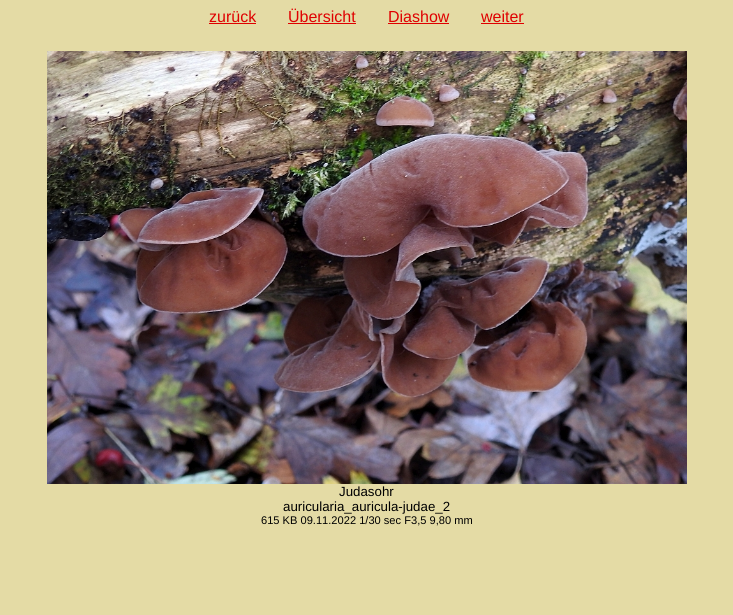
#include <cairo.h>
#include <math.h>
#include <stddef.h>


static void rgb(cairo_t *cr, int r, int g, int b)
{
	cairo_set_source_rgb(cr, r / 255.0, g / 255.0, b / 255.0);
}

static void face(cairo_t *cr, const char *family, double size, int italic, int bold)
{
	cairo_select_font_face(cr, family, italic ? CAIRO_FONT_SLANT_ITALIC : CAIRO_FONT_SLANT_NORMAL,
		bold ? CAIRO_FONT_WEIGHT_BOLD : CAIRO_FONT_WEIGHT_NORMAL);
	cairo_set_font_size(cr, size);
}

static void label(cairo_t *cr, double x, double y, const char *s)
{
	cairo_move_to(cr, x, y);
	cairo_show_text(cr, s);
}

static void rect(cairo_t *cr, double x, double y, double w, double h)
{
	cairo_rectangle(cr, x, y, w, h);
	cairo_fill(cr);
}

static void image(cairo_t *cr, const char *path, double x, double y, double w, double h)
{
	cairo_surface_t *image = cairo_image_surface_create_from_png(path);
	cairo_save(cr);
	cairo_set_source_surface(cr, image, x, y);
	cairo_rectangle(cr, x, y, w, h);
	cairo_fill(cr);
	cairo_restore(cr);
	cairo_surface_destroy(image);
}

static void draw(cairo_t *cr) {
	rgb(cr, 228, 219, 165);
	cairo_paint(cr);
	face(cr, "Liberation Sans", 16, 0, 0);
	rgb(cr, 223, 0, 0);
	label(cr, 209, 22, "zurück");
	rect(cr, 209, 23, 47, 1);
	label(cr, 288, 22, "Übersicht");
	rect(cr, 288, 23, 68, 1);
	label(cr, 388, 22, "Diashow");
	rect(cr, 388, 23, 61, 1);
	label(cr, 481, 22, "weiter");
	rect(cr, 481, 23, 43, 1);
	image(cr, "image0.png", 47, 51, 640, 433);
	face(cr, "Liberation Sans", 13.3, 0, 0);
	rgb(cr, 0, 0, 0);
	label(cr, 339, 496, "Judasohr");
	label(cr, 283, 511, "auricularia_auricula-judae_2");
	face(cr, "Liberation Sans", 11.1, 0, 0);
	label(cr, 261, 524, "615 KB 09.11.2022 1/30 sec F3,5 9,80 mm");
}

int main(void) {
	cairo_surface_t *surface = cairo_image_surface_create(CAIRO_FORMAT_RGB24, 733, 615);
	cairo_t *cr = cairo_create(surface);
	cairo_font_options_t *options = cairo_font_options_create();
	cairo_font_options_set_hint_metrics(options, CAIRO_HINT_METRICS_OFF);
	cairo_font_options_set_hint_style(options, CAIRO_HINT_STYLE_NONE);
	cairo_set_font_options(cr, options);
	cairo_set_miter_limit(cr, 4);
	draw(cr);
	cairo_surface_write_to_png(surface, "render.png");
	cairo_font_options_destroy(options);
	cairo_destroy(cr);
	cairo_surface_destroy(surface);
	return 0;
}
